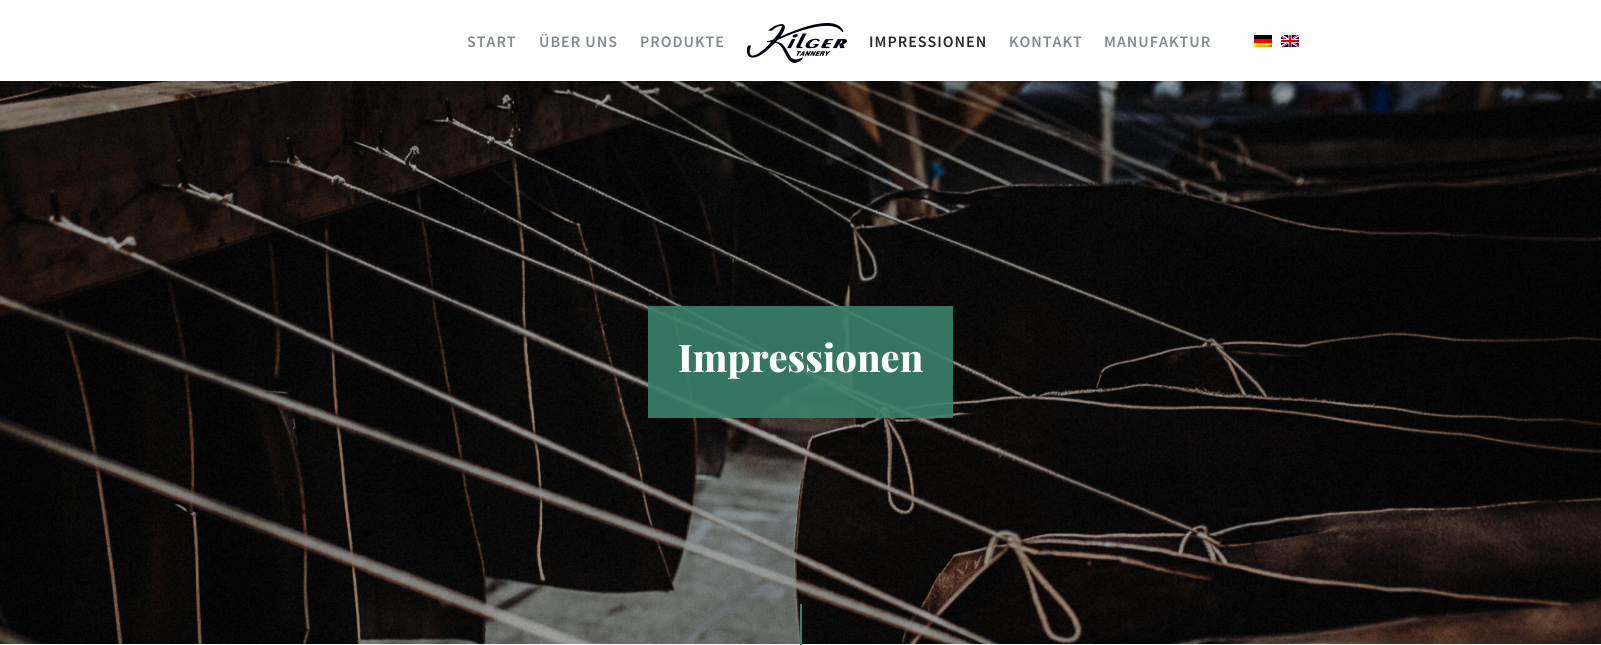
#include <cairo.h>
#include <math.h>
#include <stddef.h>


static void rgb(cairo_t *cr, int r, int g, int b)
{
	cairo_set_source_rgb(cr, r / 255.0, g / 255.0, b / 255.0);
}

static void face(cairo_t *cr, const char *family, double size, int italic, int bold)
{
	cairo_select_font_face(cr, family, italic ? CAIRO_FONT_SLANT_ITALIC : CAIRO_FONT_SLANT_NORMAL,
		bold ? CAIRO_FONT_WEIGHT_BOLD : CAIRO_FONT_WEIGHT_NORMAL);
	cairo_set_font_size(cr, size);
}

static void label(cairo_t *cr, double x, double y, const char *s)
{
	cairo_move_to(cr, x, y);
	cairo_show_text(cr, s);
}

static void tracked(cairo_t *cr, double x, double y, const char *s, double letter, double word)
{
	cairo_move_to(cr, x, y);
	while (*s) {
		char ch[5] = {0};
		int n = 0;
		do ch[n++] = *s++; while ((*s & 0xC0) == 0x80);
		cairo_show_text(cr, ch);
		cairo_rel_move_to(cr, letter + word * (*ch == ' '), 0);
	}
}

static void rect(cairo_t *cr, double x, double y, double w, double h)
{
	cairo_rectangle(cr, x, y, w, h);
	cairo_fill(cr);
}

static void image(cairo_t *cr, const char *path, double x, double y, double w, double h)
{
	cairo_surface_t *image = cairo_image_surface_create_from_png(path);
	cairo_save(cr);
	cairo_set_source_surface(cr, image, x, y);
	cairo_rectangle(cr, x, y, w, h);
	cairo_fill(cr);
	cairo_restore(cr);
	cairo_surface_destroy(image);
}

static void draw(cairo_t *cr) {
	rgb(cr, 255, 255, 255);
	cairo_paint(cr);
	image(cr, "image3.png", 0, 81, 1601, 563);
	cairo_set_source_rgba(cr, 0, 0, 0, 0.1);
	rect(cr, 24, 81, 1577, 1);
	face(cr, "Source Sans Pro SemiBold", 16, 0, 0);
	rgb(cr, 131, 137, 146);
	tracked(cr, 467, 47, "START", 1, 0);
	tracked(cr, 539, 47, "ÜBER UNS", 1, 0);
	tracked(cr, 640, 47, "PRODUKTE", 1, 0);
	image(cr, "image0.png", 747, 23, 100, 40);
	rgb(cr, 40, 40, 40);
	tracked(cr, 869, 47, "IMPRESSIONEN", 1, 0);
	rgb(cr, 131, 137, 146);
	tracked(cr, 1009, 47, "KONTAKT", 1, 0);
	tracked(cr, 1104, 47, "MANUFAKTUR", 1, 0);
	image(cr, "image1.png", 1254, 35, 18, 12);
	image(cr, "image2.png", 1281, 35, 18, 12);
	cairo_set_source_rgba(cr, 0.227, 0.506, 0.42, 0.9);
	rect(cr, 648, 306, 305, 112);
	face(cr, "Playfair Display ExtraBold", 38, 0, 0);
	rgb(cr, 255, 255, 255);
	label(cr, 678, 372, "Impressionen");
	rgb(cr, 58, 129, 107);
	rect(cr, 800, 604, 2, 41);
}

int main(void) {
	cairo_surface_t *surface = cairo_image_surface_create(CAIRO_FORMAT_RGB24, 1601, 645);
	cairo_t *cr = cairo_create(surface);
	cairo_font_options_t *options = cairo_font_options_create();
	cairo_font_options_set_hint_metrics(options, CAIRO_HINT_METRICS_OFF);
	cairo_font_options_set_hint_style(options, CAIRO_HINT_STYLE_NONE);
	cairo_set_font_options(cr, options);
	cairo_set_miter_limit(cr, 4);
	draw(cr);
	cairo_surface_write_to_png(surface, "render.png");
	cairo_font_options_destroy(options);
	cairo_destroy(cr);
	cairo_surface_destroy(surface);
	return 0;
}
